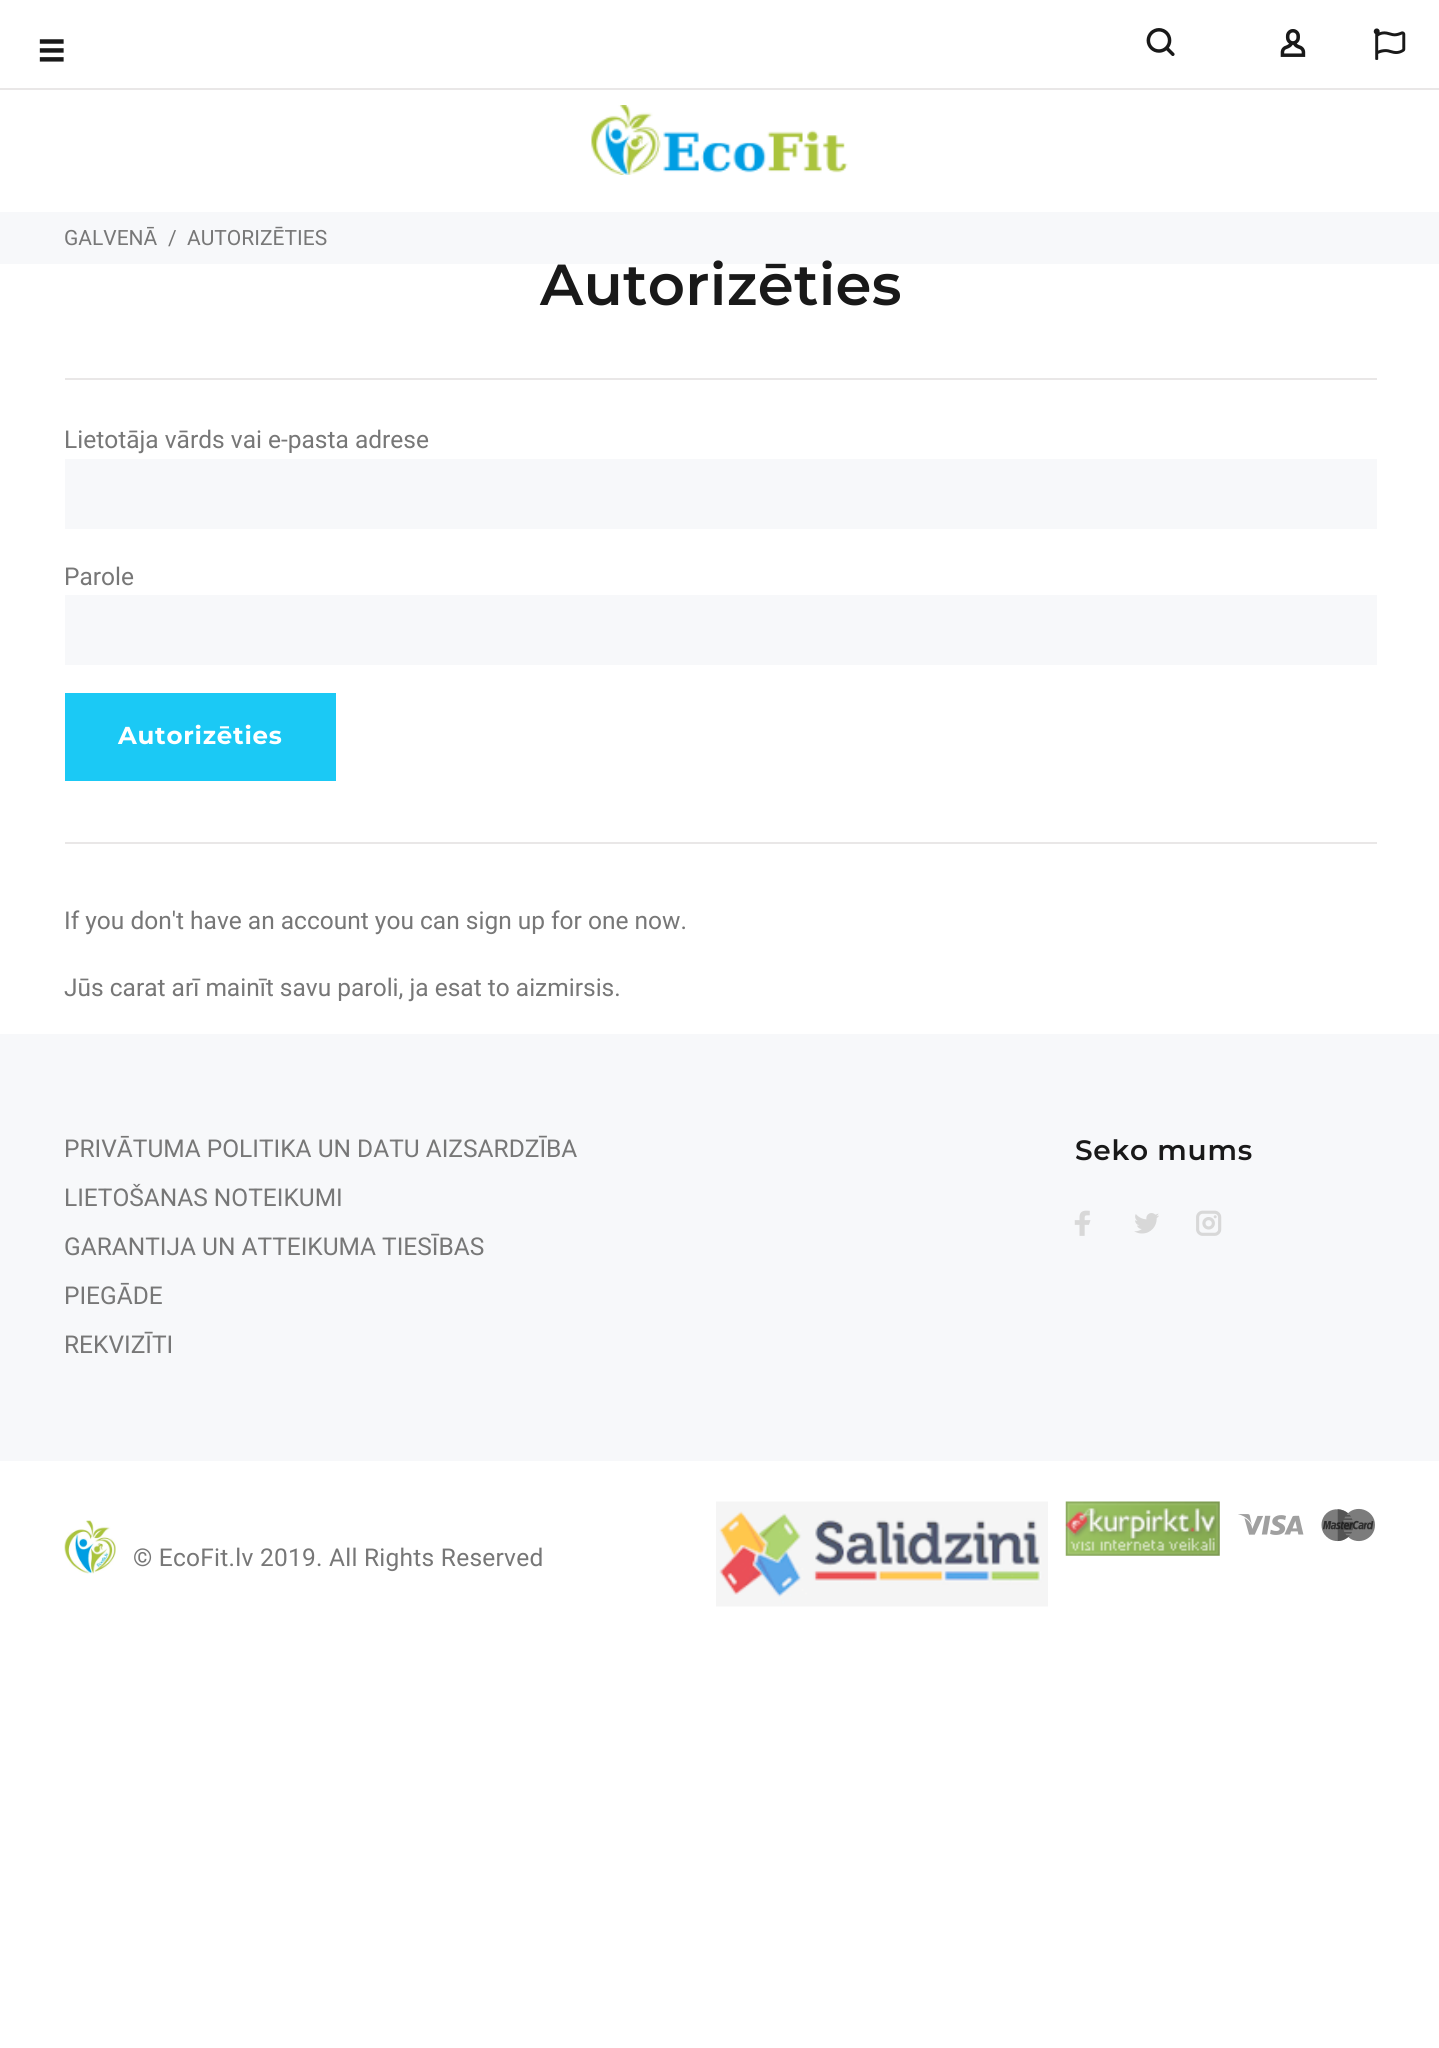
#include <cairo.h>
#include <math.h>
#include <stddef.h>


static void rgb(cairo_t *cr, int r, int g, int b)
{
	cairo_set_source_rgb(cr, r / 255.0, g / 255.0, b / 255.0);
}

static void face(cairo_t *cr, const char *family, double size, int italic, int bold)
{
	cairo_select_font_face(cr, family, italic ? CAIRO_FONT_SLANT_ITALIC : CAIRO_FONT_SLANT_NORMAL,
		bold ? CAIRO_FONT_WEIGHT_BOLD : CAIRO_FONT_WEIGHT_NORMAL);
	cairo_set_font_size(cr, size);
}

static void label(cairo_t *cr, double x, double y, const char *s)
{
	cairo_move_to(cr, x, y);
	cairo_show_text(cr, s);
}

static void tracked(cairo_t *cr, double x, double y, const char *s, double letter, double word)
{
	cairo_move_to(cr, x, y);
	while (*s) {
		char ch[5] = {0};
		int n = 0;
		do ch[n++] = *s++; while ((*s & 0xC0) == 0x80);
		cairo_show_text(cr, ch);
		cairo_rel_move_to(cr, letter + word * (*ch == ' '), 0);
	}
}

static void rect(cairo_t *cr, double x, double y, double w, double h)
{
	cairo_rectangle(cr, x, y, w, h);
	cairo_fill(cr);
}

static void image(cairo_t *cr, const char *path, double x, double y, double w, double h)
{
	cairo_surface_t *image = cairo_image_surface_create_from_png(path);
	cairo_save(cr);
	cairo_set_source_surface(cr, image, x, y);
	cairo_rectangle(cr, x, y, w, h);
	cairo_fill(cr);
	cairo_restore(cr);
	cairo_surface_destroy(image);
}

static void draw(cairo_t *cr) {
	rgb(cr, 255, 255, 255);
	cairo_paint(cr);
	image(cr, "image0.png", 39, 39, 25, 23);
	image(cr, "image1.png", 1146, 28, 29, 28);
	image(cr, "image2.png", 1280, 29, 26, 28);
	image(cr, "image3.png", 1373, 28, 33, 32);
	rgb(cr, 233, 231, 231);
	rect(cr, 0, 88, 1439, 2);
	image(cr, "image4.png", 591, 105, 257, 70);
	rgb(cr, 247, 248, 250);
	rect(cr, 0, 212, 1439, 52);
	face(cr, "Roboto", 21, 0, 0);
	rgb(cr, 119, 119, 119);
	label(cr, 64, 245, "GALVENĀ");
	label(cr, 168, 245, "/");
	label(cr, 187, 245, "AUTORIZĒTIES");
	rgb(cr, 233, 231, 231);
	rect(cr, 65, 378, 1312, 2);
	face(cr, "Montserrat SemiBold", 57.75, 0, 0);
	rgb(cr, 25, 25, 25);
	tracked(cr, 540, 305, "Autorizēties", 0.25, 0);
	face(cr, "Roboto", 24.5, 0, 0);
	rgb(cr, 119, 119, 119);
	label(cr, 64, 448, "Lietotāja vārds vai e-pasta adrese");
	rgb(cr, 247, 248, 250);
	rect(cr, 65, 459, 1312, 70);
	rgb(cr, 119, 119, 119);
	label(cr, 64, 585, "Parole");
	rgb(cr, 247, 248, 250);
	rect(cr, 65, 595, 1312, 70);
	rgb(cr, 27, 201, 245);
	rect(cr, 65, 693, 271, 88);
	face(cr, "Montserrat", 24.5, 0, 1);
	rgb(cr, 255, 255, 255);
	tracked(cr, 118, 744, "Autorizēties", 0.75, 0);
	rgb(cr, 233, 231, 231);
	rect(cr, 65, 842, 1312, 2);
	face(cr, "Roboto", 24.5, 0, 0);
	rgb(cr, 119, 119, 119);
	label(cr, 64, 929, "If you don't have an account you can sign up for one now.");
	label(cr, 64, 996, "Jūs carat arī mainīt savu paroli, ja esat to aizmirsis.");
	rgb(cr, 247, 248, 250);
	rect(cr, 0, 1034, 1439, 427);
	rgb(cr, 119, 119, 119);
	label(cr, 64, 1157, "PRIVĀTUMA POLITIKA UN DATU AIZSARDZĪBA");
	label(cr, 64, 1206, "LIETOŠANAS NOTEIKUMI");
	label(cr, 64, 1255, "GARANTIJA UN ATTEIKUMA TIESĪBAS");
	label(cr, 64, 1304, "PIEGĀDE");
	label(cr, 64, 1353, "REKVIZĪTI");
	face(cr, "Montserrat SemiBold", 28, 0, 0);
	rgb(cr, 25, 25, 25);
	tracked(cr, 1075, 1160, "Seko mums", 0.75, 0);
	image(cr, "image5.png", 1074, 1210, 17, 26);
	image(cr, "image6.png", 1134, 1213, 25, 21);
	image(cr, "image7.png", 1196, 1210, 26, 26);
	image(cr, "image8.png", 64, 1520, 52, 54);
	face(cr, "Roboto", 24.5, 0, 0);
	rgb(cr, 119, 119, 119);
	tracked(cr, 133, 1566, "© EcoFit.lv 2019. All Rights Reserved", 0.25, 0);
	image(cr, "image9.png", 716, 1501, 332, 106);
	image(cr, "image10.png", 1065, 1501, 155, 55);
	image(cr, "image11.png", 1238, 1514, 66, 21);
	rgb(cr, 124, 124, 124);
	cairo_new_path(cr);
	cairo_move_to(cr, 1353.5, 1525);
	cairo_curve_to(cr, 1353.5, 1540.5, 1334, 1547, 1324.5, 1534.5);
	cairo_curve_to(cr, 1322.5, 1532, 1321.5, 1528.5, 1321.5, 1525);
	cairo_curve_to(cr, 1321.5, 1521.5, 1322.5, 1518.5, 1324.5, 1515.5);
	cairo_curve_to(cr, 1333.5, 1503.5, 1353.5, 1510, 1353.5, 1525);
	cairo_close_path(cr);
	cairo_fill(cr);
	cairo_new_path(cr);
	cairo_move_to(cr, 1375, 1525);
	cairo_curve_to(cr, 1375, 1540.5, 1355, 1547, 1346, 1534.5);
	cairo_curve_to(cr, 1344, 1532, 1343, 1528.5, 1343, 1525);
	cairo_curve_to(cr, 1343, 1521.5, 1344, 1518, 1346, 1515.5);
	cairo_curve_to(cr, 1355, 1503, 1375, 1509.5, 1375, 1525);
	cairo_close_path(cr);
	cairo_fill(cr);
	image(cr, "image15.png", 1330, 1522, 7, 8);
	image(cr, "image12.png", 1323, 1521, 9, 9);
	image(cr, "image13.png", 1337, 1509, 17, 32);
	image(cr, "image14.png", 1352, 1520, 7, 10);
	image(cr, "image17.png", 1340, 1521, 4, 9);
	image(cr, "image16.png", 1335, 1522, 6, 8);
	image(cr, "image18.png", 1343, 1522, 7, 8);
	image(cr, "image19.png", 1349, 1522, 5, 8);
	image(cr, "image20.png", 1358, 1522, 6, 8);
	image(cr, "image22.png", 1366, 1521, 8, 9);
	image(cr, "image21.png", 1363, 1522, 5, 8);
}

int main(void) {
	cairo_surface_t *surface = cairo_image_surface_create(CAIRO_FORMAT_RGB24, 1439, 2048);
	cairo_t *cr = cairo_create(surface);
	cairo_font_options_t *options = cairo_font_options_create();
	cairo_font_options_set_hint_metrics(options, CAIRO_HINT_METRICS_OFF);
	cairo_font_options_set_hint_style(options, CAIRO_HINT_STYLE_NONE);
	cairo_set_font_options(cr, options);
	cairo_set_miter_limit(cr, 4);
	draw(cr);
	cairo_surface_write_to_png(surface, "render.png");
	cairo_font_options_destroy(options);
	cairo_destroy(cr);
	cairo_surface_destroy(surface);
	return 0;
}
